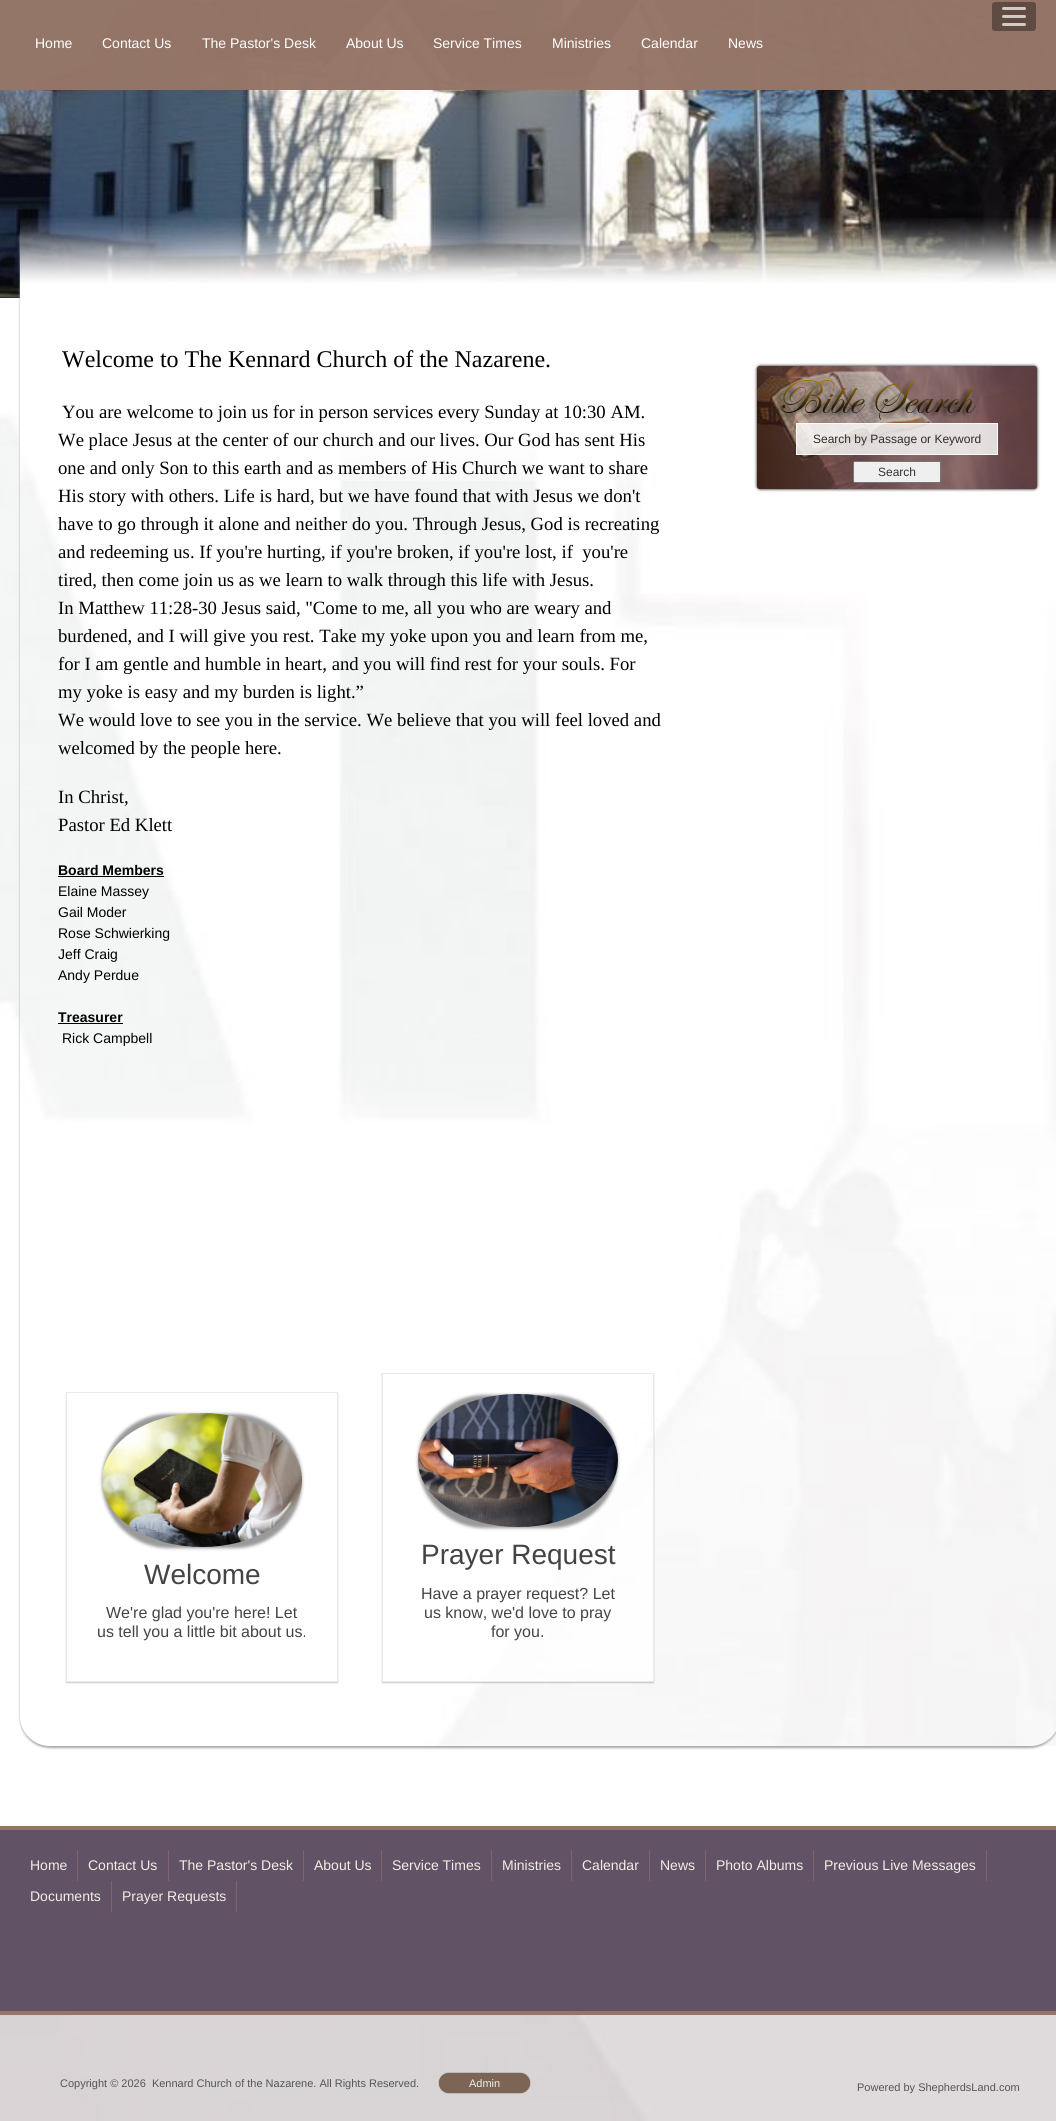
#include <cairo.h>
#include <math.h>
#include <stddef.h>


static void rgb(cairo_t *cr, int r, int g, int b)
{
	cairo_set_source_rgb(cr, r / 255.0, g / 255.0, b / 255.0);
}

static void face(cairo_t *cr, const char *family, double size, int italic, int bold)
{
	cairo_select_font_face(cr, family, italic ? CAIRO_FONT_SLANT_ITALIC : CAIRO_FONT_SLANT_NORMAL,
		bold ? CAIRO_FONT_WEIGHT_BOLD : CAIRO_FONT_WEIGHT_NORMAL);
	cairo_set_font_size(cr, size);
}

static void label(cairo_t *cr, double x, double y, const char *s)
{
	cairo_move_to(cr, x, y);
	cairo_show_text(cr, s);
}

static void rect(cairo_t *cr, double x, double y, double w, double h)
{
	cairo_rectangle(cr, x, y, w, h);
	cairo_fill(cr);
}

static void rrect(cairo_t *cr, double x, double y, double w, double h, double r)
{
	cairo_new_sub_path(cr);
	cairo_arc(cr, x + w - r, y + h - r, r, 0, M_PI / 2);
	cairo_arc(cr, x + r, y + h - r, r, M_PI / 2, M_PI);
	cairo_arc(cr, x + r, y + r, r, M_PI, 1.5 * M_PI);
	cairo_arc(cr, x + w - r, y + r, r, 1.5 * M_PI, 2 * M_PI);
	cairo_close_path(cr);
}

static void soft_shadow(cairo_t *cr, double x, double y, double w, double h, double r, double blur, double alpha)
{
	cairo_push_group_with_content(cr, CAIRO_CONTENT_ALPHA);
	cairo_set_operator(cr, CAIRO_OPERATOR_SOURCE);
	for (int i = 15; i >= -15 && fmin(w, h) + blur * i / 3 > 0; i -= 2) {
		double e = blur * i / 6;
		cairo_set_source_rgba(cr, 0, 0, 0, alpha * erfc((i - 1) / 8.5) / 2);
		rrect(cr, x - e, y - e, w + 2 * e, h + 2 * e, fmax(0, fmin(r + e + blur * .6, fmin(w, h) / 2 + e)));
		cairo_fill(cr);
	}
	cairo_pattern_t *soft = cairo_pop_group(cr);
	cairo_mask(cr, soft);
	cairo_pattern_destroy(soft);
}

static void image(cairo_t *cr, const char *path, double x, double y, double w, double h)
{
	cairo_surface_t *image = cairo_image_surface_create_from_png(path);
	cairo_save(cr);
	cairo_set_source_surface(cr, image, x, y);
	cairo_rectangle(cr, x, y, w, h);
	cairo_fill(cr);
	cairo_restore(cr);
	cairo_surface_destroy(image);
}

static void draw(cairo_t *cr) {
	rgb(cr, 255, 255, 255);
	cairo_paint(cr);
	image(cr, "image0.png", 0, 298, 1056, 1448);
	image(cr, "image1.png", 0, 0, 1056, 298);
	cairo_set_source_rgba(cr, 0.584, 0.459, 0.404, 0.98);
	rect(cr, 0, 0, 1056, 90);
	rgb(cr, 95, 75, 66);
	rrect(cr, 992, 2, 44, 29, 3);
	cairo_fill(cr);
	rgb(cr, 211, 201, 197);
	rrect(cr, 1002, 7, 24, 3, 1.5);
	cairo_fill(cr);
	rrect(cr, 1002, 15, 24, 3, 1.5);
	cairo_fill(cr);
	rrect(cr, 1002, 23, 24, 3, 1.5);
	cairo_fill(cr);
	face(cr, "Liberation Sans", 14, 0, 0);
	rgb(cr, 255, 255, 255);
	label(cr, 35, 48, "Home");
	label(cr, 102, 48, "Contact Us");
	label(cr, 202, 48, "The Pastor's Desk");
	label(cr, 346, 48, "About Us");
	label(cr, 433, 48, "Service Times");
	label(cr, 552, 48, "Ministries");
	label(cr, 641, 48, "Calendar");
	label(cr, 728, 48, "News");
	cairo_save(cr);
	cairo_set_fill_rule(cr, CAIRO_FILL_RULE_EVEN_ODD);
	cairo_new_path(cr);
	cairo_move_to(cr, 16, 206);
	cairo_line_to(cr, 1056, 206);
	cairo_line_to(cr, 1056, 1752);
	cairo_line_to(cr, 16, 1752);
	cairo_close_path(cr);
	cairo_move_to(cr, 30, 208);
	cairo_line_to(cr, 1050, 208);
	cairo_curve_to(cr, 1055.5, 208, 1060, 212.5, 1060, 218);
	cairo_line_to(cr, 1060, 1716);
	cairo_curve_to(cr, 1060, 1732.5, 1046.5, 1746, 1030, 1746);
	cairo_line_to(cr, 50, 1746);
	cairo_curve_to(cr, 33.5, 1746, 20, 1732.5, 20, 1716);
	cairo_line_to(cr, 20, 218);
	cairo_curve_to(cr, 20, 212.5, 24.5, 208, 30, 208);
	cairo_close_path(cr);
	cairo_clip(cr);
	rgb(cr, 170, 170, 170);
	soft_shadow(cr, 20, 210, 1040, 1538, 30, 1, 1);
	cairo_restore(cr);
	image(cr, "image2.png", 20, 218, 1036, 263);
	face(cr, "Liberation Serif", 24, 0, 0);
	rgb(cr, 0, 0, 0);
	label(cr, 62, 367, "Welcome to The Kennard Church of the Nazarene.");
	face(cr, "Liberation Serif", 18.7, 0, 0);
	label(cr, 62, 418, "You are welcome to join us for in person services every Sunday at 10:30 AM.");
	label(cr, 58, 446, "We place Jesus at the center of our church and our lives. Our God has sent His");
	label(cr, 58, 474, "one and only Son to this earth and as members of His Church we want to share");
	label(cr, 58, 502, "His story with others. Life is hard, but we have found that with Jesus we don't");
	label(cr, 58, 530, "have to go through it alone and neither do you. Through Jesus, God is recreating");
	label(cr, 58, 558, "and redeeming us. If you're hurting, if you're broken, if you're lost, if  you're");
	label(cr, 58, 586, "tired, then come join us as we learn to walk through this life with Jesus.");
	label(cr, 58, 614, "In Matthew 11:28-30 Jesus said, \"Come to me, all you who are weary and");
	label(cr, 58, 642, "burdened, and I will give you rest. Take my yoke upon you and learn from me,");
	label(cr, 58, 670, "for I am gentle and humble in heart, and you will find rest for your souls. For");
	label(cr, 58, 698, "my yoke is easy and my burden is light.”");
	label(cr, 58, 726, "We would love to see you in the service. We believe that you will feel loved and");
	label(cr, 58, 754, "welcomed by the people here.");
	label(cr, 58, 803, "In Christ,");
	label(cr, 58, 831, "Pastor Ed Klett");
	face(cr, "Liberation Sans", 14, 0, 1);
	label(cr, 58, 875, "Board Members");
	rect(cr, 58, 876, 106, 1);
	face(cr, "Liberation Sans", 14, 0, 0);
	label(cr, 58, 896, "Elaine Massey");
	label(cr, 58, 917, "Gail Moder");
	label(cr, 58, 938, "Rose Schwierking");
	label(cr, 58, 959, "Jeff Craig");
	label(cr, 58, 980, "Andy Perdue");
	face(cr, "Liberation Sans", 14, 0, 1);
	label(cr, 58, 1022, "Treasurer");
	rect(cr, 58, 1023, 65, 1);
	face(cr, "Liberation Sans", 14, 0, 0);
	label(cr, 62, 1043, "Rick Campbell");
	cairo_save(cr);
	cairo_set_fill_rule(cr, CAIRO_FILL_RULE_EVEN_ODD);
	cairo_new_path(cr);
	cairo_move_to(cr, 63, 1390);
	cairo_line_to(cr, 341, 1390);
	cairo_line_to(cr, 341, 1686);
	cairo_line_to(cr, 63, 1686);
	cairo_close_path(cr);
	cairo_move_to(cr, 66, 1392);
	cairo_line_to(cr, 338, 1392);
	cairo_line_to(cr, 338, 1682);
	cairo_line_to(cr, 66, 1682);
	cairo_close_path(cr);
	cairo_clip(cr);
	rgb(cr, 0, 0, 0);
	soft_shadow(cr, 66, 1393, 272, 290, 0, 0.5, 0.2);
	cairo_restore(cr);
	cairo_rectangle(cr, 66.5, 1392.5, 271, 289);
	rgb(cr, 234, 234, 234);
	cairo_set_line_width(cr, 1);
	cairo_stroke(cr);
	rgb(cr, 51, 51, 51);
	soft_shadow(cr, 102, 1414, 200, 134, 67, 1.5, 0.5);
	image(cr, "image3.png", 102, 1413, 200, 134);
	face(cr, "Liberation Sans", 28, 0, 0);
	rgb(cr, 68, 68, 68);
	label(cr, 144, 1584, "Welcome");
	face(cr, "Liberation Sans", 16, 0, 0);
	label(cr, 106, 1618, "We're glad you're here! Let");
	label(cr, 97, 1637, "us tell you a little bit about us.");
	cairo_save(cr);
	cairo_set_fill_rule(cr, CAIRO_FILL_RULE_EVEN_ODD);
	cairo_new_path(cr);
	cairo_move_to(cr, 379, 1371);
	cairo_line_to(cr, 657, 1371);
	cairo_line_to(cr, 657, 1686);
	cairo_line_to(cr, 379, 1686);
	cairo_close_path(cr);
	cairo_move_to(cr, 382, 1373);
	cairo_line_to(cr, 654, 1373);
	cairo_line_to(cr, 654, 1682);
	cairo_line_to(cr, 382, 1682);
	cairo_close_path(cr);
	cairo_clip(cr);
	rgb(cr, 0, 0, 0);
	soft_shadow(cr, 382, 1374, 272, 309, 0, 0.5, 0.2);
	cairo_restore(cr);
	image(cr, "image4.png", 484, 1448, 169, 233);
	cairo_rectangle(cr, 382.5, 1373.5, 271, 308);
	rgb(cr, 234, 234, 234);
	cairo_stroke(cr);
	rgb(cr, 51, 51, 51);
	soft_shadow(cr, 418, 1395, 200, 133, 66.5, 1.5, 0.5);
	image(cr, "image5.png", 418, 1394, 200, 133);
	face(cr, "Liberation Sans", 28, 0, 0);
	rgb(cr, 68, 68, 68);
	label(cr, 421, 1564, "Prayer Request");
	face(cr, "Liberation Sans", 16, 0, 0);
	label(cr, 421, 1599, "Have a prayer request? Let");
	label(cr, 424, 1618, "us know, we'd love to pray");
	label(cr, 491, 1637, "for you.");
	rgb(cr, 0, 0, 0);
	soft_shadow(cr, 757, 366, 280, 123, 3, 1.5, 1);
	image(cr, "image6.png", 757, 366, 280, 123);
	image(cr, "image7.png", 757, 371, 219, 90);
	cairo_set_source_rgba(cr, 1, 1, 1, 0.8);
	rect(cr, 796, 423, 202, 32);
	cairo_rectangle(cr, 796.5, 423.5, 201, 31);
	cairo_stroke(cr);
	face(cr, "Liberation Sans", 12, 0, 0);
	rgb(cr, 46, 45, 45);
	label(cr, 813, 443, "Search by Passage or Keyword");
	rgb(cr, 239, 239, 239);
	rrect(cr, 853.5, 461.5, 87, 21, 1.5);
	cairo_fill_preserve(cr);
	rgb(cr, 118, 118, 118);
	cairo_stroke(cr);
	rgb(cr, 51, 51, 51);
	label(cr, 878, 476, "Search");
	rgb(cr, 97, 82, 101);
	rect(cr, 0, 1830, 1056, 181);
	rgb(cr, 149, 117, 103);
	rect(cr, 0, 1826, 1056, 4);
	rect(cr, 0, 2011, 1056, 4);
	rgb(cr, 131, 98, 114);
	rect(cr, 77, 1850, 1, 31);
	face(cr, "Liberation Sans", 14, 0, 0);
	rgb(cr, 241, 238, 228);
	label(cr, 30, 1870, "Home");
	rgb(cr, 131, 98, 114);
	rect(cr, 168, 1850, 1, 31);
	rgb(cr, 241, 238, 228);
	label(cr, 88, 1870, "Contact Us");
	rgb(cr, 131, 98, 114);
	rect(cr, 303, 1850, 1, 31);
	rgb(cr, 241, 238, 228);
	label(cr, 179, 1870, "The Pastor's Desk");
	rgb(cr, 131, 98, 114);
	rect(cr, 381, 1850, 1, 31);
	rgb(cr, 241, 238, 228);
	label(cr, 314, 1870, "About Us");
	rgb(cr, 131, 98, 114);
	rect(cr, 491, 1850, 1, 31);
	rgb(cr, 241, 238, 228);
	label(cr, 392, 1870, "Service Times");
	rgb(cr, 131, 98, 114);
	rect(cr, 571, 1850, 1, 31);
	rgb(cr, 241, 238, 228);
	label(cr, 502, 1870, "Ministries");
	rgb(cr, 131, 98, 114);
	rect(cr, 649, 1850, 1, 31);
	rgb(cr, 241, 238, 228);
	label(cr, 582, 1870, "Calendar");
	rgb(cr, 131, 98, 114);
	rect(cr, 705, 1850, 1, 31);
	rgb(cr, 241, 238, 228);
	label(cr, 660, 1870, "News");
	rgb(cr, 131, 98, 114);
	rect(cr, 813, 1850, 1, 31);
	rgb(cr, 241, 238, 228);
	label(cr, 716, 1870, "Photo Albums");
	rgb(cr, 131, 98, 114);
	rect(cr, 986, 1850, 1, 31);
	rgb(cr, 241, 238, 228);
	label(cr, 824, 1870, "Previous Live Messages");
	rgb(cr, 131, 98, 114);
	rect(cr, 111, 1881, 1, 31);
	rgb(cr, 241, 238, 228);
	label(cr, 30, 1901, "Documents");
	rgb(cr, 131, 98, 114);
	rect(cr, 236, 1881, 1, 31);
	rgb(cr, 241, 238, 228);
	label(cr, 122, 1901, "Prayer Requests");
	image(cr, "image8.png", 0, 2015, 1056, 106);
	face(cr, "Liberation Sans", 11, 0, 0);
	rgb(cr, 85, 85, 85);
	label(cr, 60, 2087, "Copyright © 2026  Kennard Church of the Nazarene. All Rights Reserved.");
	rgb(cr, 102, 102, 102);
	soft_shadow(cr, 439, 2073, 91, 20, 10, 0.5, 1);
	rgb(cr, 124, 101, 84);
	rrect(cr, 439, 2073, 91, 20, 10);
	cairo_fill(cr);
	rgb(cr, 238, 238, 238);
	label(cr, 469, 2087, "Admin");
	rgb(cr, 85, 85, 85);
	label(cr, 857, 2091, "Powered by ShepherdsLand.com");
}

int main(void) {
	cairo_surface_t *surface = cairo_image_surface_create(CAIRO_FORMAT_RGB24, 1056, 2121);
	cairo_t *cr = cairo_create(surface);
	cairo_font_options_t *options = cairo_font_options_create();
	cairo_font_options_set_hint_metrics(options, CAIRO_HINT_METRICS_OFF);
	cairo_font_options_set_hint_style(options, CAIRO_HINT_STYLE_NONE);
	cairo_set_font_options(cr, options);
	cairo_set_miter_limit(cr, 4);
	draw(cr);
	cairo_surface_write_to_png(surface, "render.png");
	cairo_font_options_destroy(options);
	cairo_destroy(cr);
	cairo_surface_destroy(surface);
	return 0;
}
